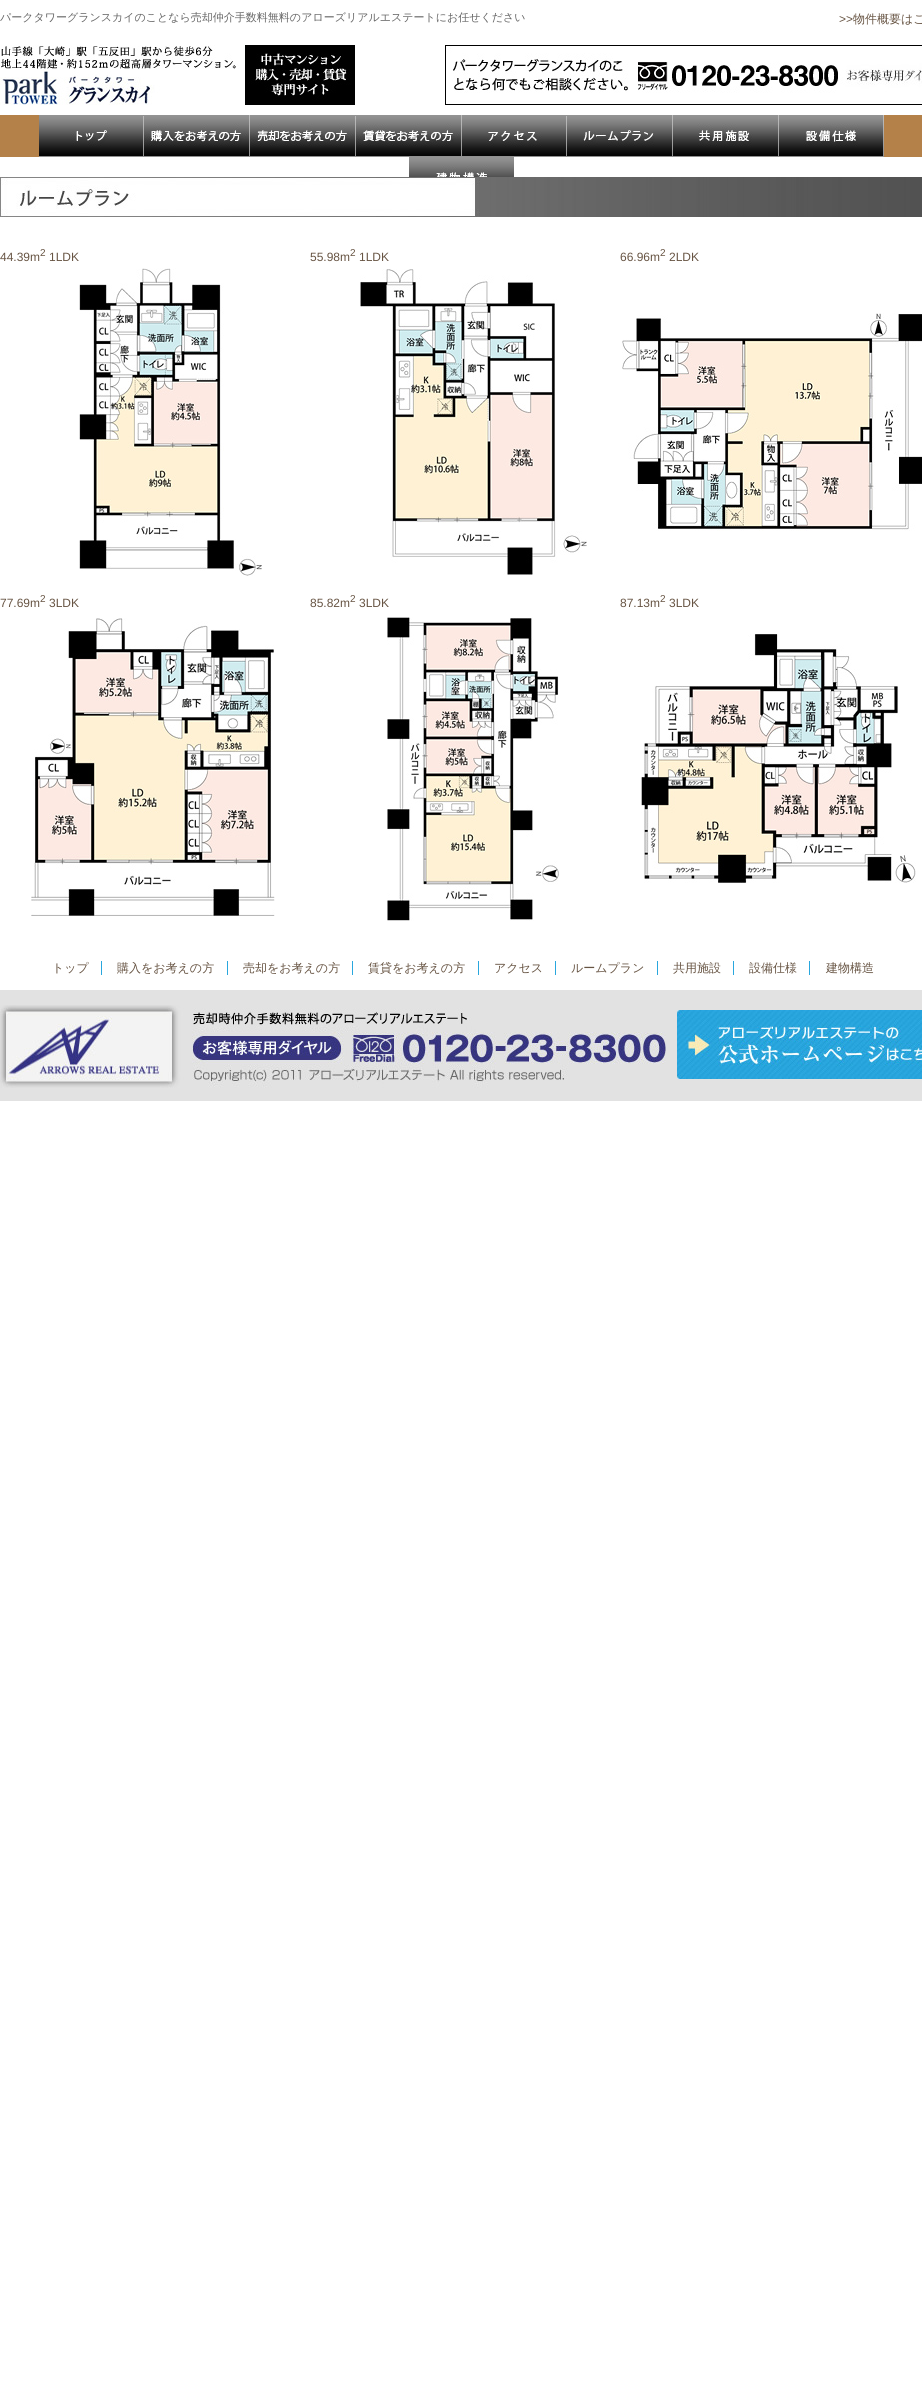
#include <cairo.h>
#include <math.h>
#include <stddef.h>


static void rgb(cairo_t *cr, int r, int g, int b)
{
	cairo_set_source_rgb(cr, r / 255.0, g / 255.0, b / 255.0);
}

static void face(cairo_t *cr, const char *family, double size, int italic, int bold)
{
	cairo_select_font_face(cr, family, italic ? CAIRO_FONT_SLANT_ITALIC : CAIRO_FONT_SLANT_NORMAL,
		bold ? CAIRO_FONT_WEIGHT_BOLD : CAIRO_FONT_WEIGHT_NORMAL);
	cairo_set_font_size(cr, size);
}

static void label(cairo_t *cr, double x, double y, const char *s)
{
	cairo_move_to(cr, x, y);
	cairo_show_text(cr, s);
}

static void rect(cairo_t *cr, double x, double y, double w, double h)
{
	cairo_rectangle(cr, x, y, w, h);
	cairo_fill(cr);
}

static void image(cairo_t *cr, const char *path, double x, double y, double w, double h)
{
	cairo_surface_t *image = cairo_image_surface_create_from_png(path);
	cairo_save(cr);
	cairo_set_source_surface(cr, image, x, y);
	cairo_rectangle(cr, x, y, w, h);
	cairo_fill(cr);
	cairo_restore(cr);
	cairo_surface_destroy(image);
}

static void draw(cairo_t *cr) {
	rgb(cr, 255, 255, 255);
	cairo_paint(cr);
	face(cr, "WenQuanYi Zen Hei Medium", 11, 0, 0);
	rgb(cr, 102, 102, 102);
	label(cr, 0, 21, "パークタワーグランスカイのことなら売却仲介手数料無料のアローズリアルエステートにお任せください");
	face(cr, "Liberation Sans", 12, 0, 0);
	rgb(cr, 103, 84, 67);
	label(cr, 839, 23, ">>");
	face(cr, "WenQuanYi Zen Hei Medium", 12, 0, 0);
	label(cr, 853, 23, "物件概要はこ");
	image(cr, "image0.png", 0, 45, 355, 60);
	image(cr, "image1.png", 445, 45, 477, 60);
	rgb(cr, 180, 129, 73);
	rect(cr, 0, 115, 922, 42);
	image(cr, "image2.png", 39, 115, 105, 42);
	image(cr, "image3.png", 144, 115, 106, 42);
	image(cr, "image4.png", 250, 115, 106, 42);
	image(cr, "image5.png", 356, 115, 106, 42);
	image(cr, "image6.png", 462, 115, 105, 42);
	image(cr, "image7.png", 567, 115, 106, 42);
	image(cr, "image8.png", 673, 115, 106, 42);
	image(cr, "image9.png", 779, 115, 105, 42);
	image(cr, "image10.png", 409, 157, 105, 20);
	image(cr, "image11.png", 0, 177, 922, 40);
	face(cr, "Liberation Sans", 12, 0, 0);
	rgb(cr, 103, 84, 67);
	label(cr, 0, 261, "44.39m");
	face(cr, "Liberation Sans", 10, 0, 0);
	label(cr, 40, 256, "2");
	face(cr, "Liberation Sans", 12, 0, 0);
	label(cr, 49, 261, "1LDK");
	image(cr, "image12.png", 79, 268, 183, 308);
	label(cr, 310, 261, "55.98m");
	face(cr, "Liberation Sans", 10, 0, 0);
	label(cr, 350, 256, "2");
	face(cr, "Liberation Sans", 12, 0, 0);
	label(cr, 359, 261, "1LDK");
	image(cr, "image13.png", 360, 269, 227, 306);
	label(cr, 620, 261, "66.96m");
	face(cr, "Liberation Sans", 10, 0, 0);
	label(cr, 660, 256, "2");
	face(cr, "Liberation Sans", 12, 0, 0);
	label(cr, 669, 261, "2LDK");
	image(cr, "image14.png", 622, 313, 300, 218);
	label(cr, 0, 607, "77.69m");
	face(cr, "Liberation Sans", 10, 0, 0);
	label(cr, 40, 602, "2");
	face(cr, "Liberation Sans", 12, 0, 0);
	label(cr, 49, 607, "3LDK");
	image(cr, "image15.png", 31, 618, 244, 298);
	label(cr, 310, 607, "85.82m");
	face(cr, "Liberation Sans", 10, 0, 0);
	label(cr, 350, 602, "2");
	face(cr, "Liberation Sans", 12, 0, 0);
	label(cr, 359, 607, "3LDK");
	image(cr, "image16.png", 387, 617, 172, 304);
	label(cr, 620, 607, "87.13m");
	face(cr, "Liberation Sans", 10, 0, 0);
	label(cr, 660, 602, "2");
	face(cr, "Liberation Sans", 12, 0, 0);
	label(cr, 669, 607, "3LDK");
	image(cr, "image17.png", 641, 634, 275, 249);
	face(cr, "WenQuanYi Zen Hei Medium", 12, 0, 0);
	label(cr, 52, 972, "トップ");
	rgb(cr, 41, 167, 222);
	rect(cr, 101, 961, 1, 14);
	rgb(cr, 103, 84, 67);
	label(cr, 117, 972, "購入をお考えの方");
	rgb(cr, 41, 167, 222);
	rect(cr, 227, 961, 1, 14);
	rgb(cr, 103, 84, 67);
	label(cr, 243, 972, "売却をお考えの方");
	rgb(cr, 41, 167, 222);
	rect(cr, 352, 961, 1, 14);
	rgb(cr, 103, 84, 67);
	label(cr, 368, 972, "賃貸をお考えの方");
	rgb(cr, 41, 167, 222);
	rect(cr, 478, 961, 1, 14);
	rgb(cr, 103, 84, 67);
	label(cr, 494, 972, "アクセス");
	rgb(cr, 41, 167, 222);
	rect(cr, 555, 961, 1, 14);
	rgb(cr, 103, 84, 67);
	label(cr, 571, 972, "ルームプラン");
	rgb(cr, 41, 167, 222);
	rect(cr, 657, 961, 1, 14);
	rgb(cr, 103, 84, 67);
	label(cr, 673, 972, "共用施設");
	rgb(cr, 41, 167, 222);
	rect(cr, 733, 961, 1, 14);
	rgb(cr, 103, 84, 67);
	label(cr, 749, 972, "設備仕様");
	rgb(cr, 41, 167, 222);
	rect(cr, 809, 961, 1, 14);
	rgb(cr, 103, 84, 67);
	label(cr, 826, 972, "建物構造");
	rgb(cr, 226, 226, 226);
	rect(cr, 0, 990, 922, 111);
	image(cr, "image18.png", 0, 1005, 666, 83);
	image(cr, "image19.png", 677, 1010, 245, 69);
}

int main(void) {
	cairo_surface_t *surface = cairo_image_surface_create(CAIRO_FORMAT_RGB24, 922, 2383);
	cairo_t *cr = cairo_create(surface);
	cairo_font_options_t *options = cairo_font_options_create();
	cairo_font_options_set_hint_metrics(options, CAIRO_HINT_METRICS_OFF);
	cairo_font_options_set_hint_style(options, CAIRO_HINT_STYLE_NONE);
	cairo_set_font_options(cr, options);
	cairo_set_miter_limit(cr, 4);
	draw(cr);
	cairo_surface_write_to_png(surface, "render.png");
	cairo_font_options_destroy(options);
	cairo_destroy(cr);
	cairo_surface_destroy(surface);
	return 0;
}
